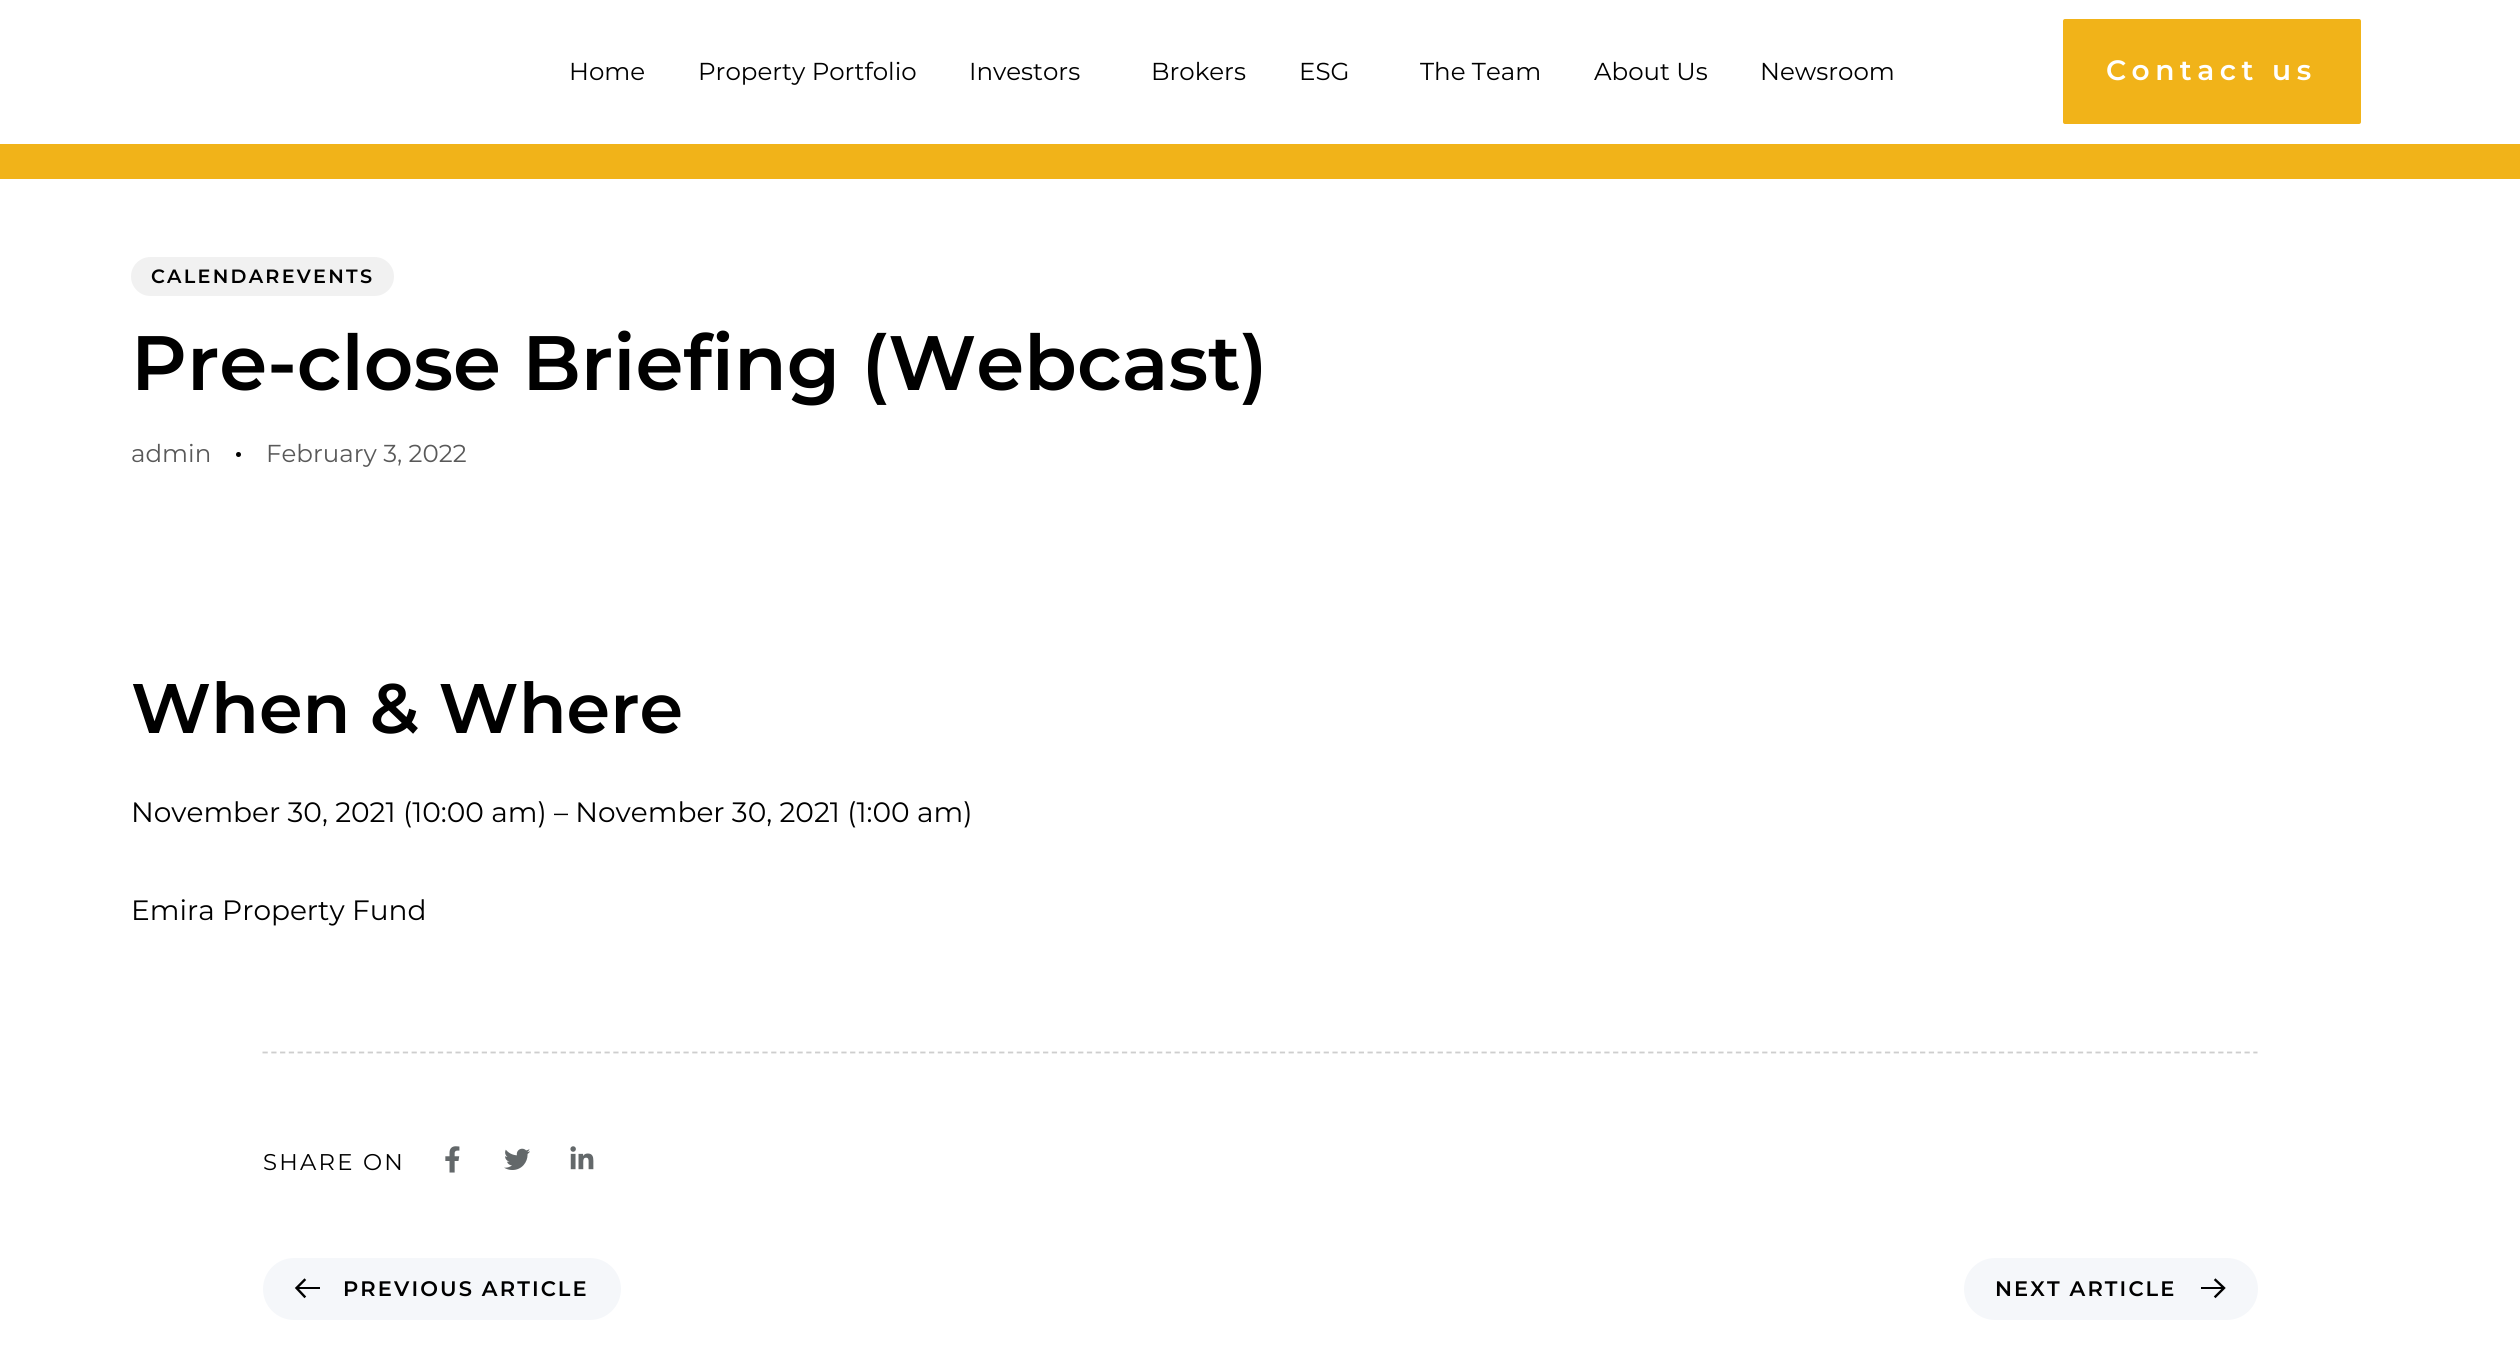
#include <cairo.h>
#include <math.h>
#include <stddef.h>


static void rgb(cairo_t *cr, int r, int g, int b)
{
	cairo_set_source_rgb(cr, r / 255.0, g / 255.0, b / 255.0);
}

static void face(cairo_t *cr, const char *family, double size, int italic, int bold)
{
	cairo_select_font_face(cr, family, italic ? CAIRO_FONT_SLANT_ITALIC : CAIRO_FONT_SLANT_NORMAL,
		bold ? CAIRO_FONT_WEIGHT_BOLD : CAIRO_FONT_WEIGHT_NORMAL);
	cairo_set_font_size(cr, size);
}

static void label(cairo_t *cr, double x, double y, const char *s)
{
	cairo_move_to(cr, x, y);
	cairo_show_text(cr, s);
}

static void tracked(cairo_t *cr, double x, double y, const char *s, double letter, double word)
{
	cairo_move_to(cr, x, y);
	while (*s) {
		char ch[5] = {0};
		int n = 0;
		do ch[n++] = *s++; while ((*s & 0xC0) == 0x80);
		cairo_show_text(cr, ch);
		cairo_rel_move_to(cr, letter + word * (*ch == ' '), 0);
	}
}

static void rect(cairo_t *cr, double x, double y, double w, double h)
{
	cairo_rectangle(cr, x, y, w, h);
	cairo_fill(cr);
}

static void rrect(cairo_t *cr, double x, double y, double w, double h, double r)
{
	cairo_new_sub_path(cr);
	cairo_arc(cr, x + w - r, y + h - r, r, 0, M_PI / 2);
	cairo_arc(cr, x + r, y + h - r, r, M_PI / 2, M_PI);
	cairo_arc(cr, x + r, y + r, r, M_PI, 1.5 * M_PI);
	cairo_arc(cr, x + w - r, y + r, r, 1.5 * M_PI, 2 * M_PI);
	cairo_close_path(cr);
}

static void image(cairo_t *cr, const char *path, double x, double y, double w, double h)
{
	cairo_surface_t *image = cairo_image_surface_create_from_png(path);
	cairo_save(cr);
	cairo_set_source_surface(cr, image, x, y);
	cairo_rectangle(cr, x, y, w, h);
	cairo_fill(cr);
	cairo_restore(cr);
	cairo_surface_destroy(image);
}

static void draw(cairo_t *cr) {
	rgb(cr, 255, 255, 255);
	cairo_paint(cr);
	face(cr, "Montserrat", 24.5, 0, 0);
	rgb(cr, 0, 0, 0);
	label(cr, 569, 80, "Home");
	label(cr, 698, 80, "Property Portfolio");
	label(cr, 969, 80, "Investors");
	label(cr, 1151, 80, "Brokers");
	label(cr, 1299, 80, "ESG");
	label(cr, 1420, 80, "The Team");
	label(cr, 1594, 80, "About Us");
	label(cr, 1760, 80, "Newsroom");
	rgb(cr, 241, 179, 25);
	rrect(cr, 2064, 20, 296, 103, 1);
	cairo_fill_preserve(cr);
	cairo_stroke(cr);
	face(cr, "Montserrat SemiBold", 28, 0, 0);
	rgb(cr, 255, 255, 255);
	tracked(cr, 2106, 80, "Contact us", 5.5, 0);
	rgb(cr, 241, 179, 25);
	rect(cr, 0, 144, 2520, 35);
	rgb(cr, 241, 241, 241);
	rrect(cr, 131, 257, 263, 39, 19.5);
	cairo_fill(cr);
	face(cr, "Montserrat SemiBold", 19.25, 0, 0);
	rgb(cr, 0, 0, 0);
	tracked(cr, 151, 283, "CALENDAREVENTS", 2.25, 0);
	face(cr, "Montserrat SemiBold", 77, 0, 0);
	label(cr, 131, 390, "Pre-close Briefing (Webcast)");
	face(cr, "Montserrat", 24.5, 0, 0);
	rgb(cr, 89, 89, 89);
	label(cr, 131, 462, "admin");
	rgb(cr, 0, 0, 0);
	cairo_new_path(cr);
	cairo_arc(cr, 238.5, 454.5, 2.5, 0, 2 * M_PI);
	cairo_fill(cr);
	rgb(cr, 89, 89, 89);
	label(cr, 266, 462, "February 3, 2022");
	face(cr, "Montserrat SemiBold", 70, 0, 0);
	rgb(cr, 0, 0, 0);
	label(cr, 131, 733, "When & Where");
	face(cr, "Montserrat", 28, 0, 0);
	label(cr, 131, 822, "November 30, 2021 (10:00 am) – November 30, 2021 (1:00 am)");
	label(cr, 131, 920, "Emira Property Fund");
	cairo_new_path(cr);
	cairo_move_to(cr, 262.5, 1052.5);
	cairo_line_to(cr, 2257.5, 1052.5);
	rgb(cr, 206, 206, 206);
	cairo_set_line_width(cr, 1.8);
	cairo_set_dash(cr, (double[]){5.25, 3.52}, 2, 0);
	cairo_stroke(cr);
	face(cr, "Montserrat", 22.75, 0, 0);
	rgb(cr, 0, 0, 0);
	tracked(cr, 263, 1170, "SHARE ON", 2.25, 0);
	image(cr, "image0.png", 445, 1146, 15, 27);
	image(cr, "image1.png", 504, 1148, 26, 22);
	image(cr, "image2.png", 570, 1146, 24, 24);
	rgb(cr, 245, 247, 250);
	rrect(cr, 263, 1258, 358, 62, 31);
	cairo_fill(cr);
	rgb(cr, 0, 0, 0);
	rect(cr, 297, 1287, 23, 2);
	cairo_new_path(cr);
	cairo_move_to(cr, 304.5, 1296.5);
	cairo_line_to(cr, 296.5, 1288);
	cairo_line_to(cr, 304.5, 1280);
	cairo_set_line_width(cr, 2.4);
	cairo_set_line_cap(cr, CAIRO_LINE_CAP_SQUARE);
	cairo_set_dash(cr, NULL, 0, 0);
	cairo_stroke(cr);
	face(cr, "Montserrat SemiBold", 21, 0, 0);
	tracked(cr, 343, 1296, "PREVIOUS ARTICLE", 2.1, 0);
	rgb(cr, 245, 247, 250);
	rrect(cr, 1964, 1258, 294, 62, 31);
	cairo_fill(cr);
	rgb(cr, 0, 0, 0);
	tracked(cr, 1995, 1296, "NEXT ARTICLE", 2.1, 0);
	rect(cr, 2201, 1287, 23, 2);
	cairo_new_path(cr);
	cairo_move_to(cr, 2215.5, 1280);
	cairo_line_to(cr, 2224, 1288);
	cairo_line_to(cr, 2215.5, 1296.5);
	cairo_stroke(cr);
}

int main(void) {
	cairo_surface_t *surface = cairo_image_surface_create(CAIRO_FORMAT_RGB24, 2520, 1355);
	cairo_t *cr = cairo_create(surface);
	cairo_font_options_t *options = cairo_font_options_create();
	cairo_font_options_set_hint_metrics(options, CAIRO_HINT_METRICS_OFF);
	cairo_font_options_set_hint_style(options, CAIRO_HINT_STYLE_NONE);
	cairo_set_font_options(cr, options);
	cairo_set_miter_limit(cr, 4);
	draw(cr);
	cairo_surface_write_to_png(surface, "render.png");
	cairo_font_options_destroy(options);
	cairo_destroy(cr);
	cairo_surface_destroy(surface);
	return 0;
}
